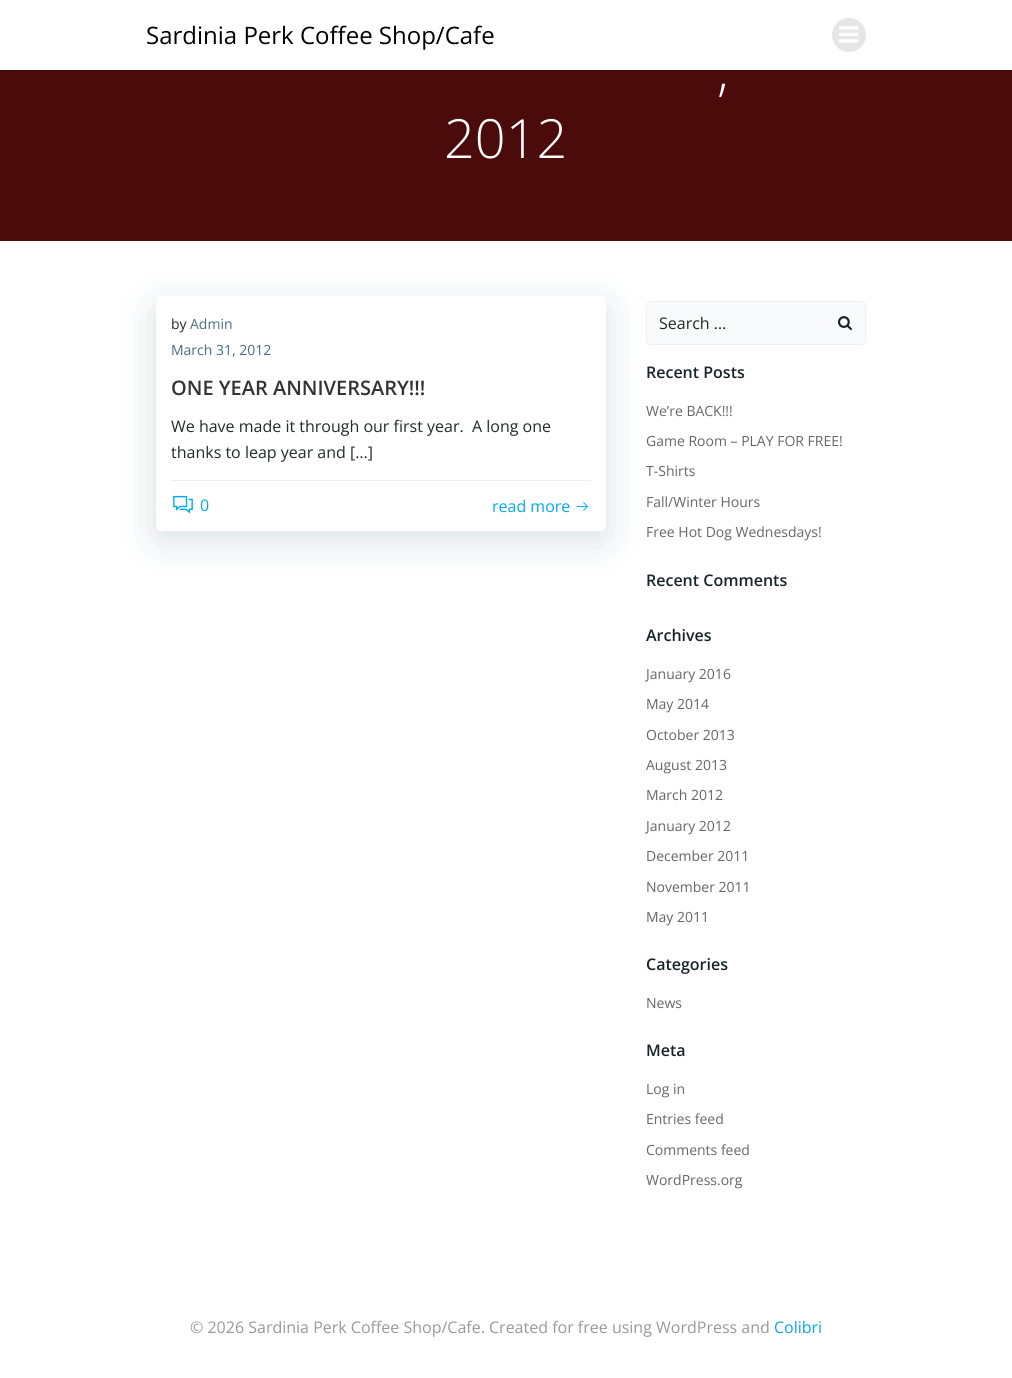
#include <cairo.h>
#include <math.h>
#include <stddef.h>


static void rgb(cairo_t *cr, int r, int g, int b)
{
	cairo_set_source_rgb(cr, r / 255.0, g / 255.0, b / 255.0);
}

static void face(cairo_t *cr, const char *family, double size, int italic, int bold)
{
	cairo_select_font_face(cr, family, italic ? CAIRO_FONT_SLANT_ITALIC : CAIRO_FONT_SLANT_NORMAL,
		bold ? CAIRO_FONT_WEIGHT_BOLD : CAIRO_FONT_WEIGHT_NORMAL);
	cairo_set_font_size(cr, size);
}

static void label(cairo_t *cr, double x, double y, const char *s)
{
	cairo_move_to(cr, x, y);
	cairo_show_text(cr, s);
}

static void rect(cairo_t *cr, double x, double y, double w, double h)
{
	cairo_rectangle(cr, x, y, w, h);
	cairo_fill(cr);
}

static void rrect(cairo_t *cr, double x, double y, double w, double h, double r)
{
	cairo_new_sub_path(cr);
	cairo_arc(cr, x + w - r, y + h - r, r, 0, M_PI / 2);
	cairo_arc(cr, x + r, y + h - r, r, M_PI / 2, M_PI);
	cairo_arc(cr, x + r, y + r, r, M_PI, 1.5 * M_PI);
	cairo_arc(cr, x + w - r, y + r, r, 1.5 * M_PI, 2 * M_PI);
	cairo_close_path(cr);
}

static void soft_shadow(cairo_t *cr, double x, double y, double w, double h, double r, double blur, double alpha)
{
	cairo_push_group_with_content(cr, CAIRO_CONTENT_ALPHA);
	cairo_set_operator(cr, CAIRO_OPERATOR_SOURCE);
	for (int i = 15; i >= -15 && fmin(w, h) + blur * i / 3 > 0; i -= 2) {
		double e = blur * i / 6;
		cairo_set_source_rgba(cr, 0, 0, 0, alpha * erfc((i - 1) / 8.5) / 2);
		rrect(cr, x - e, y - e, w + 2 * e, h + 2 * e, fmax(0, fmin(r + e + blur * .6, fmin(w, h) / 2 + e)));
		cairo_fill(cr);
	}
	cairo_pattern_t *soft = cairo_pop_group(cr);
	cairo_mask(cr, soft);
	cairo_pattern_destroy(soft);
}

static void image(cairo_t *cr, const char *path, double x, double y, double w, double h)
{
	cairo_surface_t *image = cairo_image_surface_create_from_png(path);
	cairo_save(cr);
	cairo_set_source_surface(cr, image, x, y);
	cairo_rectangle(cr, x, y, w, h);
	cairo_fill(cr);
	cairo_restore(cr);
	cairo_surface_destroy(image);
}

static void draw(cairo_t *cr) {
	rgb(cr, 255, 255, 255);
	cairo_paint(cr);
	rgb(cr, 76, 11, 11);
	rect(cr, 0, 70, 1012, 171);
	rgb(cr, 0, 0, 0);
	soft_shadow(cr, 0, 0, 1012, 70, 0, 2, 0.5);
	rgb(cr, 255, 255, 255);
	rect(cr, 0, 0, 1012, 70);
	face(cr, "Open Sans", 24, 0, 0);
	rgb(cr, 0, 0, 0);
	label(cr, 146, 44, "Sardinia Perk Coffee Shop/Cafe");
	rgb(cr, 230, 230, 230);
	cairo_new_path(cr);
	cairo_arc(cr, 849, 35, 17, 0, 2 * M_PI);
	cairo_fill(cr);
	image(cr, "image0.png", 839, 26, 20, 17);
	face(cr, "Open Sans Light", 54, 0, 0);
	rgb(cr, 255, 255, 255);
	label(cr, 717, 90, ",");
	label(cr, 444, 158, "2012");
	rgb(cr, 1, 51, 74);
	soft_shadow(cr, 156, 306, 450, 235, 5, 20, 0.15);
	rgb(cr, 255, 255, 255);
	rrect(cr, 156, 296, 450, 235, 5);
	cairo_fill(cr);
	rgb(cr, 238, 238, 238);
	rect(cr, 171, 480, 420, 1);
	face(cr, "Open Sans", 14, 0, 0);
	rgb(cr, 37, 41, 42);
	label(cr, 171, 329, "by");
	rgb(cr, 70, 112, 127);
	label(cr, 190, 329, "Admin");
	label(cr, 171, 355, "March 31, 2012");
	face(cr, "Open Sans SemiBold", 20, 0, 0);
	rgb(cr, 51, 51, 51);
	label(cr, 171, 395, "ONE YEAR ANNIVERSARY!!!");
	face(cr, "Open Sans", 16, 0, 0);
	rgb(cr, 37, 41, 42);
	label(cr, 171, 432, "We have made it through our first year.  A long one");
	label(cr, 171, 458, "thanks to leap year and […]");
	image(cr, "image1.png", 173, 495, 20, 19);
	rgb(cr, 3, 169, 244);
	label(cr, 200, 511, "0");
	label(cr, 492, 512, "read more");
	image(cr, "image2.png", 576, 502, 12, 9);
	rrect(cr, 646.5, 301.5, 219, 43, 4.5);
	rgb(cr, 238, 238, 238);
	cairo_set_line_width(cr, 1);
	cairo_stroke(cr);
	cairo_save(cr);
	rrect(cr, 647, 302, 218, 42, 4);
	cairo_clip(cr);
	rgb(cr, 249, 250, 251);
	cairo_new_path(cr);
	cairo_move_to(cr, 652, 302);
	cairo_line_to(cr, 825, 302);
	cairo_line_to(cr, 825, 344);
	cairo_line_to(cr, 652, 344);
	cairo_curve_to(cr, 649, 344, 647, 342, 647, 339);
	cairo_line_to(cr, 647, 307);
	cairo_curve_to(cr, 647, 304, 649, 302, 652, 302);
	cairo_close_path(cr);
	cairo_fill(cr);
	cairo_restore(cr);
	rgb(cr, 37, 41, 42);
	label(cr, 659, 329, "Search …");
	cairo_save(cr);
	rrect(cr, 647, 302, 218, 42, 4);
	cairo_clip(cr);
	rgb(cr, 249, 250, 251);
	cairo_new_path(cr);
	cairo_move_to(cr, 825, 302);
	cairo_line_to(cr, 860, 302);
	cairo_curve_to(cr, 863, 302, 865, 304, 865, 307);
	cairo_line_to(cr, 865, 339);
	cairo_curve_to(cr, 865, 342, 863, 344, 860, 344);
	cairo_line_to(cr, 825, 344);
	cairo_close_path(cr);
	cairo_fill(cr);
	cairo_restore(cr);
	image(cr, "image3.png", 838, 316, 14, 15);
	face(cr, "Open Sans SemiBold", 16, 0, 0);
	rgb(cr, 23, 37, 42);
	label(cr, 646, 378, "Recent Posts");
	face(cr, "Open Sans", 14, 0, 0);
	rgb(cr, 102, 102, 102);
	label(cr, 646, 416, "We’re BACK!!!");
	label(cr, 646, 446, "Game Room – PLAY FOR FREE!");
	label(cr, 646, 476, "T-Shirts");
	label(cr, 646, 507, "Fall/Winter Hours");
	label(cr, 646, 537, "Free Hot Dog Wednesdays!");
	face(cr, "Open Sans SemiBold", 16, 0, 0);
	rgb(cr, 23, 37, 42);
	label(cr, 646, 586, "Recent Comments");
	label(cr, 646, 641, "Archives");
	face(cr, "Open Sans", 14, 0, 0);
	rgb(cr, 102, 102, 102);
	label(cr, 646, 679, "January 2016");
	label(cr, 646, 709, "May 2014");
	label(cr, 646, 740, "October 2013");
	label(cr, 646, 770, "August 2013");
	label(cr, 646, 800, "March 2012");
	label(cr, 646, 831, "January 2012");
	label(cr, 646, 861, "December 2011");
	label(cr, 646, 892, "November 2011");
	label(cr, 646, 922, "May 2011");
	face(cr, "Open Sans SemiBold", 16, 0, 0);
	rgb(cr, 23, 37, 42);
	label(cr, 646, 970, "Categories");
	face(cr, "Open Sans", 14, 0, 0);
	rgb(cr, 102, 102, 102);
	label(cr, 646, 1008, "News");
	face(cr, "Open Sans SemiBold", 16, 0, 0);
	rgb(cr, 23, 37, 42);
	label(cr, 646, 1056, "Meta");
	face(cr, "Open Sans", 14, 0, 0);
	rgb(cr, 102, 102, 102);
	label(cr, 646, 1094, "Log in");
	label(cr, 646, 1124, "Entries feed");
	label(cr, 646, 1155, "Comments feed");
	label(cr, 646, 1185, "WordPress.org");
	face(cr, "Open Sans", 16, 0, 0);
	rgb(cr, 153, 153, 153);
	label(cr, 190, 1333, "© 2026 Sardinia Perk Coffee Shop/Cafe. Created for free using WordPress and");
	rgb(cr, 3, 169, 244);
	label(cr, 774, 1333, "Colibri");
}

int main(void) {
	cairo_surface_t *surface = cairo_image_surface_create(CAIRO_FORMAT_RGB24, 1012, 1378);
	cairo_t *cr = cairo_create(surface);
	cairo_font_options_t *options = cairo_font_options_create();
	cairo_font_options_set_hint_metrics(options, CAIRO_HINT_METRICS_OFF);
	cairo_font_options_set_hint_style(options, CAIRO_HINT_STYLE_NONE);
	cairo_set_font_options(cr, options);
	cairo_set_miter_limit(cr, 4);
	draw(cr);
	cairo_surface_write_to_png(surface, "render.png");
	cairo_font_options_destroy(options);
	cairo_destroy(cr);
	cairo_surface_destroy(surface);
	return 0;
}
